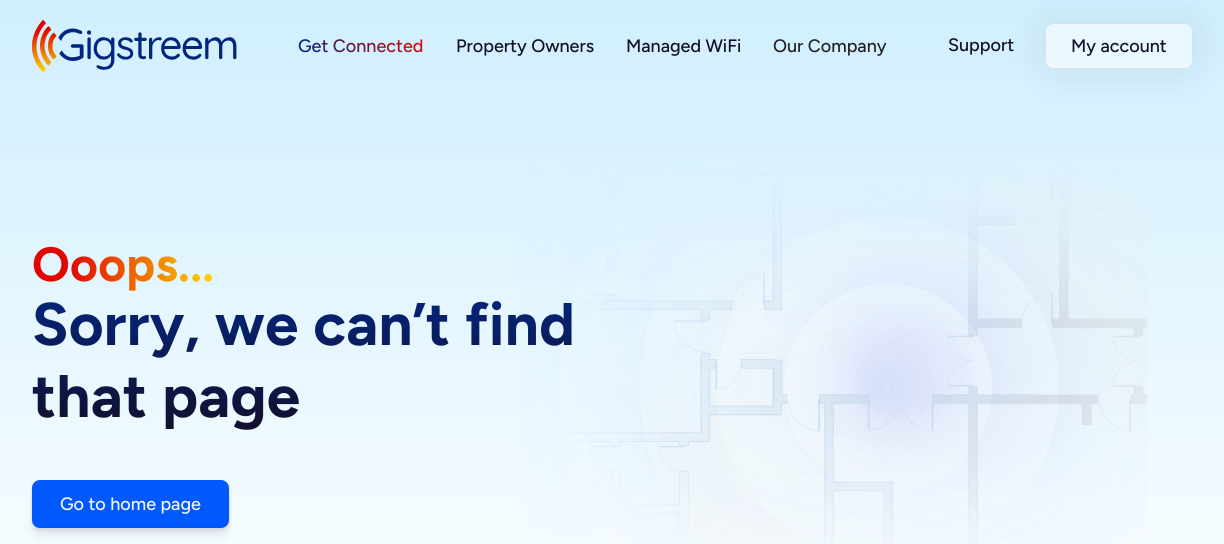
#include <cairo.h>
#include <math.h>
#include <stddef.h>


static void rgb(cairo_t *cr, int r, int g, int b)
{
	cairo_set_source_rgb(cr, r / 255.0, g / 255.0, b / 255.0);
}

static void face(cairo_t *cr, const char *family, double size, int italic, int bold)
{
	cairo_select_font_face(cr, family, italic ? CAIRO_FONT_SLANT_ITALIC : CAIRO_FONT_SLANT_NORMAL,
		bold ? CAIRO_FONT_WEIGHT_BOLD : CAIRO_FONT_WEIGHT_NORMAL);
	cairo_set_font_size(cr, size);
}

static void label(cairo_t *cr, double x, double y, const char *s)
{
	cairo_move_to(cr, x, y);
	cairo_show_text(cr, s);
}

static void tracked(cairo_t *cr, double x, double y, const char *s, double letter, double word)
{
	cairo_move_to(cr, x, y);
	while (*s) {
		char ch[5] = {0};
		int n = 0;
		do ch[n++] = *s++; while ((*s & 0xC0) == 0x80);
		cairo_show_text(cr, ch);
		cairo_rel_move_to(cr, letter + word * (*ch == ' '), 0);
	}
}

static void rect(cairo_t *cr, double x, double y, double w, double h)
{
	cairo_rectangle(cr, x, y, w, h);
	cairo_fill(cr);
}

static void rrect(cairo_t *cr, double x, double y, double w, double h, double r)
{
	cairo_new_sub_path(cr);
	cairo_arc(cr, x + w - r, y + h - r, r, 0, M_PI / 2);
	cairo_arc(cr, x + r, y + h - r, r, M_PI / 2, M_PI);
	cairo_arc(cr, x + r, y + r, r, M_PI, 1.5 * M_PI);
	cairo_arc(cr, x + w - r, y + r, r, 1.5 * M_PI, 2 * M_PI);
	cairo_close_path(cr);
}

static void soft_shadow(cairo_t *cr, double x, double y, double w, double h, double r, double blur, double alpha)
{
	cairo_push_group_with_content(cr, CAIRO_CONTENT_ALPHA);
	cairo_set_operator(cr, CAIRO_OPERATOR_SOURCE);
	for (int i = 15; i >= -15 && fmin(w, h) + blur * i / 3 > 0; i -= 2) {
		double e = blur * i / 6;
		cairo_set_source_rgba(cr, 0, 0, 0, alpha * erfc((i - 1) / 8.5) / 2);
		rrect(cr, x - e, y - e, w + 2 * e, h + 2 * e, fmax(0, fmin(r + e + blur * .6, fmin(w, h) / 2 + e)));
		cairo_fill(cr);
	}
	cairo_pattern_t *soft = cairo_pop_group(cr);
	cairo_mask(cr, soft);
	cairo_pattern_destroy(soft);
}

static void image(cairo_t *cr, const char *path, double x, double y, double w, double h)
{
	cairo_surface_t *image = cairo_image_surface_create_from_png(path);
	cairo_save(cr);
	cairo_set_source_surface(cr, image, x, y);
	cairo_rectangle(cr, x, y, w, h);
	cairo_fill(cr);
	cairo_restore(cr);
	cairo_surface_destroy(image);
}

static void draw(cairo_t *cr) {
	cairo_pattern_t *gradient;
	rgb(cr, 255, 255, 255);
	cairo_paint(cr);
	gradient = cairo_pattern_create_linear(612, 0, 612, 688);
	cairo_pattern_add_color_stop_rgba(gradient, 0, 0.816, 0.937, 1, 1);
	cairo_pattern_add_color_stop_rgba(gradient, 1, 1, 1, 1, 1);
	cairo_set_source(cr, gradient);
	cairo_pattern_destroy(gradient);
	rect(cr, 0, 0, 1224, 544);
	image(cr, "image0.png", 32, 20, 205, 52);
	face(cr, "Figtree Medium", 18, 0, 0);
	gradient = cairo_pattern_create_linear(298, 46, 424, 46);
	cairo_pattern_add_color_stop_rgba(gradient, 0, 0.008, 0.149, 0.494, 1);
	cairo_pattern_add_color_stop_rgba(gradient, 1, 0.878, 0.027, 0, 1);
	cairo_set_source(cr, gradient);
	cairo_pattern_destroy(gradient);
	label(cr, 298, 52, "Get Connected");
	rgb(cr, 19, 15, 43);
	label(cr, 456, 52, "Property Owners");
	label(cr, 626, 52, "Managed WiFi");
	rgb(cr, 34, 34, 34);
	label(cr, 773, 52, "Our Company");
	rgb(cr, 19, 15, 43);
	label(cr, 948, 51, "Support");
	cairo_save(cr);
	cairo_set_fill_rule(cr, CAIRO_FILL_RULE_EVEN_ODD);
	cairo_new_path(cr);
	cairo_move_to(cr, 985, 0);
	cairo_line_to(cr, 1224, 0);
	cairo_line_to(cr, 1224, 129);
	cairo_line_to(cr, 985, 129);
	cairo_close_path(cr);
	cairo_move_to(cr, 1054, 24);
	cairo_line_to(cr, 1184, 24);
	cairo_curve_to(cr, 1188.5, 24, 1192, 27.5, 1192, 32);
	cairo_line_to(cr, 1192, 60);
	cairo_curve_to(cr, 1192, 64.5, 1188.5, 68, 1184, 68);
	cairo_line_to(cr, 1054, 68);
	cairo_curve_to(cr, 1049.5, 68, 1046, 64.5, 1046, 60);
	cairo_line_to(cr, 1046, 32);
	cairo_curve_to(cr, 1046, 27.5, 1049.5, 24, 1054, 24);
	cairo_close_path(cr);
	cairo_clip(cr);
	rgb(cr, 19, 15, 43);
	soft_shadow(cr, 1046, 24, 146, 44, 8, 20, 0.1);
	cairo_restore(cr);
	cairo_set_source_rgba(cr, 1, 1, 1, 0.5);
	rrect(cr, 1046.5, 24.5, 145, 43, 7.5);
	cairo_fill_preserve(cr);
	rgb(cr, 248, 247, 248);
	cairo_set_line_width(cr, 1);
	cairo_stroke(cr);
	rgb(cr, 19, 15, 43);
	label(cr, 1071, 52, "My account");
	face(cr, "Figtree", 48, 0, 1);
	gradient = cairo_pattern_create_linear(214, 264, 32, 264);
	cairo_pattern_add_color_stop_rgba(gradient, 0, 1, 0.843, 0, 1);
	cairo_pattern_add_color_stop_rgba(gradient, 0.8, 0.878, 0.027, 0, 1);
	cairo_set_source(cr, gradient);
	cairo_pattern_destroy(gradient);
	tracked(cr, 32, 281, "Ooops...", 0.25, 0);
	image(cr, "image1.png", 520, 163, 627, 381);
	face(cr, "Figtree", 60, 0, 1);
	gradient = cairo_pattern_create_linear(352, 288, 352, 432);
	cairo_pattern_add_color_stop_rgba(gradient, 0, 0.008, 0.149, 0.494, 1);
	cairo_pattern_add_color_stop_rgba(gradient, 1, 0.075, 0.059, 0.169, 1);
	cairo_set_source(cr, gradient);
	cairo_pattern_destroy(gradient);
	tracked(cr, 32, 345, "Sorry, we can’t find", 0.25, 0);
	tracked(cr, 32, 417, "that page", 0.25, 0);
	rgb(cr, 19, 15, 43);
	soft_shadow(cr, 32, 481, 197, 48, 8, 1.5, 0.07);
	soft_shadow(cr, 32, 484, 197, 48, 8, 2, 0.07);
	soft_shadow(cr, 32, 490, 197, 48, 8, 4, 0.05);
	rgb(cr, 0, 89, 255);
	rrect(cr, 32, 480, 197, 48, 8);
	cairo_fill(cr);
	cairo_set_source_rgba(cr, 0.075, 0.059, 0.169, 0.05);
	cairo_new_path(cr);
	cairo_move_to(cr, 32, 518);
	cairo_line_to(cr, 32, 520);
	cairo_curve_to(cr, 32, 524, 36, 528, 40, 528);
	cairo_line_to(cr, 221, 528);
	cairo_curve_to(cr, 225, 528, 229, 524, 229, 520);
	cairo_line_to(cr, 229, 518);
	cairo_curve_to(cr, 229, 522, 225, 526, 221, 526);
	cairo_line_to(cr, 40, 526);
	cairo_curve_to(cr, 36, 526, 32, 522, 32, 518);
	cairo_close_path(cr);
	cairo_fill(cr);
	face(cr, "Figtree Medium", 18, 0, 0);
	rgb(cr, 248, 247, 248);
	label(cr, 60, 510, "Go to home page");
}

int main(void) {
	cairo_surface_t *surface = cairo_image_surface_create(CAIRO_FORMAT_RGB24, 1224, 544);
	cairo_t *cr = cairo_create(surface);
	cairo_font_options_t *options = cairo_font_options_create();
	cairo_font_options_set_hint_metrics(options, CAIRO_HINT_METRICS_OFF);
	cairo_font_options_set_hint_style(options, CAIRO_HINT_STYLE_NONE);
	cairo_set_font_options(cr, options);
	cairo_set_miter_limit(cr, 4);
	draw(cr);
	cairo_surface_write_to_png(surface, "render.png");
	cairo_font_options_destroy(options);
	cairo_destroy(cr);
	cairo_surface_destroy(surface);
	return 0;
}
